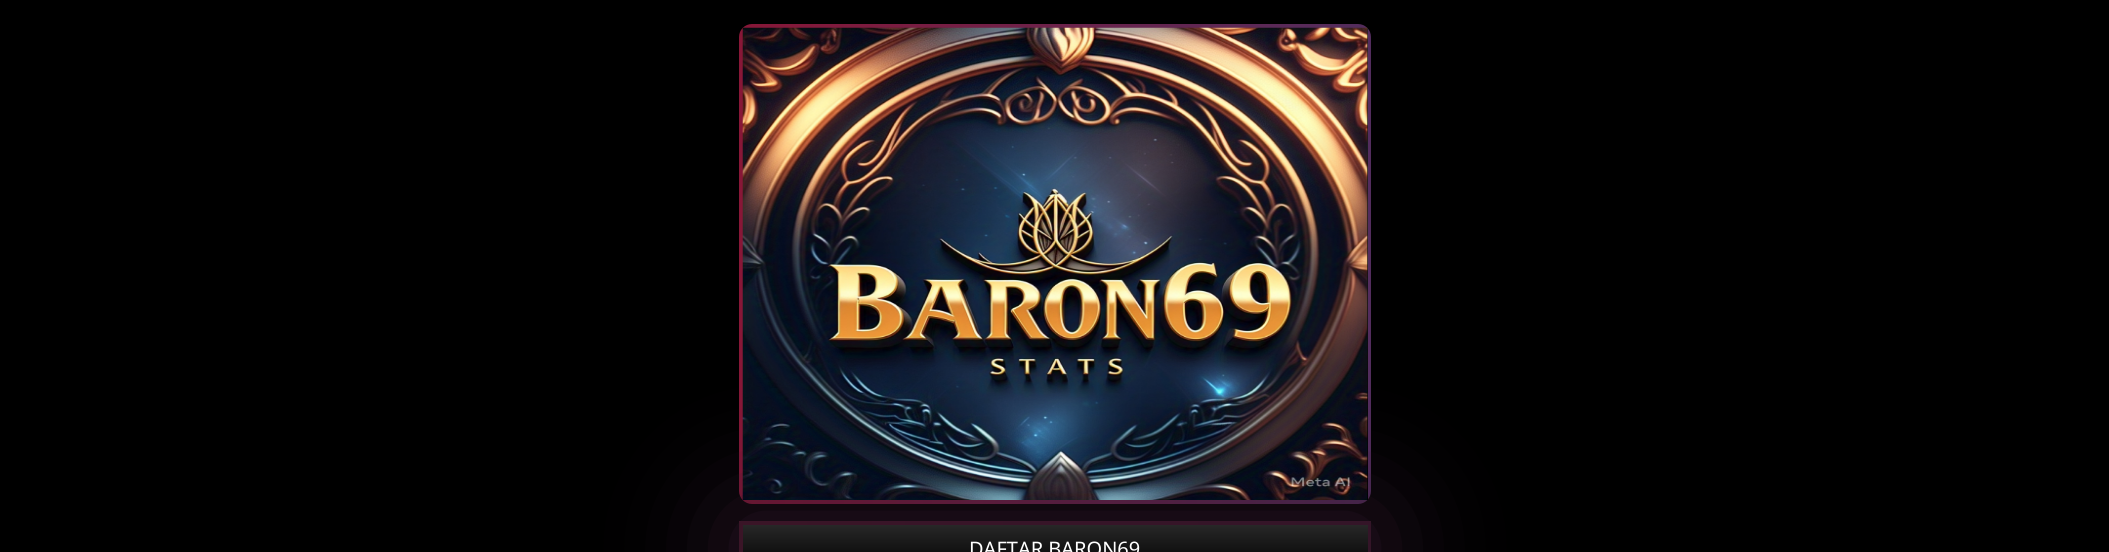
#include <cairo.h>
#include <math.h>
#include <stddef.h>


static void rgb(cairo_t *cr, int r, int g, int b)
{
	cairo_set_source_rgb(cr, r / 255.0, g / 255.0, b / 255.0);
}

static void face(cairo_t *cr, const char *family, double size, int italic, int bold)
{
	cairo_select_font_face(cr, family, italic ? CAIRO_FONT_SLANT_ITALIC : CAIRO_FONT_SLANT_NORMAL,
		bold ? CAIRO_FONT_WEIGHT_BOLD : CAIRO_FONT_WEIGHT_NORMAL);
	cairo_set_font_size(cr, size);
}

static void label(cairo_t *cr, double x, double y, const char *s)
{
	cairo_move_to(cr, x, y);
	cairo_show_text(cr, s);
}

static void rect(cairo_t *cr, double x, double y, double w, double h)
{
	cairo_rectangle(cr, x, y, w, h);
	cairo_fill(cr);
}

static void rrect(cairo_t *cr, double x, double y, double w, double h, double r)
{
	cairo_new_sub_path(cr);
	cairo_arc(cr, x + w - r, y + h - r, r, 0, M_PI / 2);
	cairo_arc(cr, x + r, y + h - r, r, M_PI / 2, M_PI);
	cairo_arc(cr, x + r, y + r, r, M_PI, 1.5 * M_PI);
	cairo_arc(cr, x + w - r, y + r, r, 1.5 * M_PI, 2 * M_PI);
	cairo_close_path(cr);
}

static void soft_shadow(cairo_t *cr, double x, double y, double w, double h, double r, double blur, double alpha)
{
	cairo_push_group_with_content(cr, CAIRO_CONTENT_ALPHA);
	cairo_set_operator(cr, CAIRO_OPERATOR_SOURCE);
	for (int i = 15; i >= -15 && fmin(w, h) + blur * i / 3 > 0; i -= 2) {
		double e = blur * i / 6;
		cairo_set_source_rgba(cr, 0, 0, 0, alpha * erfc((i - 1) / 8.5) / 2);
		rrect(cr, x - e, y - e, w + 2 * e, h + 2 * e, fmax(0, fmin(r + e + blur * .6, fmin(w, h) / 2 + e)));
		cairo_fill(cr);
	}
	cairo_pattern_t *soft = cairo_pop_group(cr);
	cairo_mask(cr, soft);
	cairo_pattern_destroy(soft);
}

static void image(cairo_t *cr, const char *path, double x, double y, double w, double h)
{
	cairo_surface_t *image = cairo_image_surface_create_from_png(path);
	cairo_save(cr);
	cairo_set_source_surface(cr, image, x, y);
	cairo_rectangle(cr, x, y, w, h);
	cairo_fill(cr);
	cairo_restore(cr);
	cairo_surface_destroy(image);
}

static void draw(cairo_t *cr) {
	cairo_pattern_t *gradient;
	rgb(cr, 0, 0, 0);
	cairo_paint(cr);
	gradient = cairo_pattern_create_linear(739, 264, 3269, 264);
	cairo_pattern_add_color_stop_rgba(gradient, 0, 0.529, 0.09, 0.216, 1);
	cairo_pattern_add_color_stop_rgba(gradient, 0.49, 0.122, 0.255, 0.506, 1);
	cairo_pattern_add_color_stop_rgba(gradient, 1, 0.529, 0.09, 0.216, 1);
	cairo_set_source(cr, gradient);
	cairo_pattern_destroy(gradient);
	rrect(cr, 739, 24, 632, 480, 13);
	cairo_fill(cr);
	gradient = cairo_pattern_create_linear(739, 549, 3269, 549);
	cairo_pattern_add_color_stop_rgba(gradient, 0, 0.278, 0.082, 0.145, 1);
	cairo_pattern_add_color_stop_rgba(gradient, 1, 0.075, 0.086, 0.184, 1);
	cairo_set_source(cr, gradient);
	cairo_pattern_destroy(gradient);
	rect(cr, 739, 521, 632, 31);
	rgb(cr, 45, 22, 42);
	soft_shadow(cr, 739, 521, 632, 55, 0, 62.5, 1);
	gradient = cairo_pattern_create_linear(1055, 500, 1055, 28);
	cairo_pattern_add_color_stop_rgba(gradient, 0, 0, 0, 0, 1);
	cairo_pattern_add_color_stop_rgba(gradient, 1, 0.153, 0.153, 0.153, 1);
	cairo_set_source(cr, gradient);
	cairo_pattern_destroy(gradient);
	rect(cr, 1367, 28, 1, 472);
	image(cr, "image0.png", 742, 27, 626, 473);
	gradient = cairo_pattern_create_linear(1055, 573, 1055, 525);
	cairo_pattern_add_color_stop_rgba(gradient, 0, 0, 0, 0, 1);
	cairo_pattern_add_color_stop_rgba(gradient, 1, 0.153, 0.153, 0.153, 1);
	cairo_set_source(cr, gradient);
	cairo_pattern_destroy(gradient);
	rect(cr, 743, 525, 625, 27);
	face(cr, "Noto Sans", 20, 0, 0);
	rgb(cr, 255, 255, 255);
	label(cr, 969, 556, "DAFTAR BARON69");
}

int main(void) {
	cairo_surface_t *surface = cairo_image_surface_create(CAIRO_FORMAT_RGB24, 2109, 552);
	cairo_t *cr = cairo_create(surface);
	cairo_font_options_t *options = cairo_font_options_create();
	cairo_font_options_set_hint_metrics(options, CAIRO_HINT_METRICS_OFF);
	cairo_font_options_set_hint_style(options, CAIRO_HINT_STYLE_NONE);
	cairo_set_font_options(cr, options);
	cairo_set_miter_limit(cr, 4);
	draw(cr);
	cairo_surface_write_to_png(surface, "render.png");
	cairo_font_options_destroy(options);
	cairo_destroy(cr);
	cairo_surface_destroy(surface);
	return 0;
}
